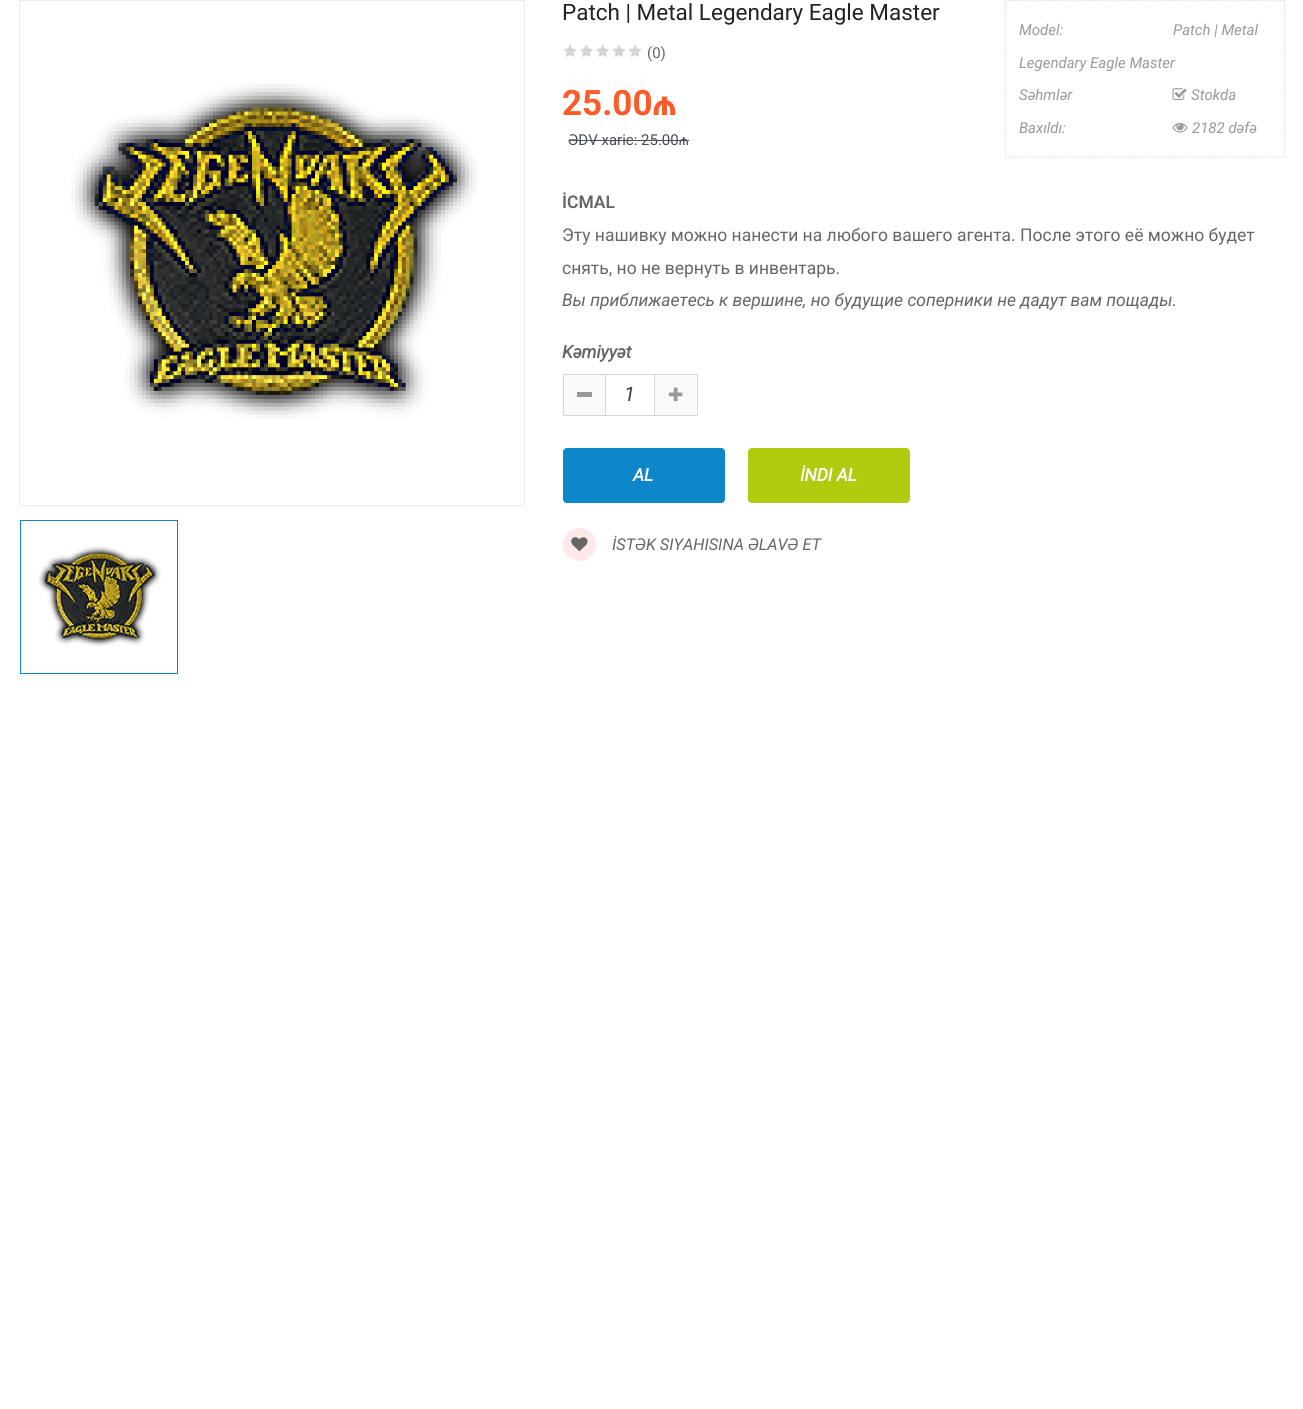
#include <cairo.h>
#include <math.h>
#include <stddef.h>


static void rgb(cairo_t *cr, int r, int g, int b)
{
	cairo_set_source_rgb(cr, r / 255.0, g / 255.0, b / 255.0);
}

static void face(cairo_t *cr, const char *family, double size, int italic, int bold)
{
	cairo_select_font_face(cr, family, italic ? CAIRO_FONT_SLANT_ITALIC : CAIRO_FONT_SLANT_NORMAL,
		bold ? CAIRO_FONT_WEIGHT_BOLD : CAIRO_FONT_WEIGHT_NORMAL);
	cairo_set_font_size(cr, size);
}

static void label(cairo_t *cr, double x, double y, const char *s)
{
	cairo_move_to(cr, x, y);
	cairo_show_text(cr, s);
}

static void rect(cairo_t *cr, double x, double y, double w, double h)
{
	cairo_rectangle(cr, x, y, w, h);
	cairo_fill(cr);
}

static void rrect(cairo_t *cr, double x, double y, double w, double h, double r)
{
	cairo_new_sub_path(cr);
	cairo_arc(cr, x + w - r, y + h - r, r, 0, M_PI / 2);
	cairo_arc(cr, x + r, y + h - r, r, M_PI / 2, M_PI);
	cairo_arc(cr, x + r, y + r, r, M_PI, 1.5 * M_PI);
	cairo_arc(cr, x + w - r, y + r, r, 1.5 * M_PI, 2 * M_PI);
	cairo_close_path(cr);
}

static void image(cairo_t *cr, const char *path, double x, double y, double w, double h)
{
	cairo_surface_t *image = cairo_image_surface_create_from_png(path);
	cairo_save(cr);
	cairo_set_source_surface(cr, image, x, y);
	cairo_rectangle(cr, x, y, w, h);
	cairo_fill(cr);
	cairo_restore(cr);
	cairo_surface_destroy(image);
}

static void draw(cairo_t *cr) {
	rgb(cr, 255, 255, 255);
	cairo_paint(cr);
	cairo_rectangle(cr, 19.5, 0.5, 505, 505);
	rgb(cr, 234, 234, 234);
	cairo_set_line_width(cr, 1);
	cairo_stroke(cr);
	image(cr, "image0.png", 71, 84, 406, 335);
	cairo_rectangle(cr, 20.5, 520.5, 157, 153);
	rgb(cr, 14, 134, 202);
	cairo_stroke(cr);
	image(cr, "image1.png", 38, 546, 123, 101);
	face(cr, "Roboto", 22.5, 0, 0);
	rgb(cr, 34, 34, 34);
	label(cr, 562, 20, "Patch | Metal Legendary Eagle Master");
	image(cr, "image2.png", 563, 45, 14, 12);
	image(cr, "image3.png", 580, 44, 13, 13);
	image(cr, "image4.png", 596, 44, 13, 13);
	image(cr, "image5.png", 612, 45, 14, 12);
	image(cr, "image2.png", 628, 45, 14, 12);
	face(cr, "Roboto", 15, 0, 0);
	rgb(cr, 102, 102, 102);
	label(cr, 647, 58, "(0)");
	face(cr, "Roboto", 35, 0, 1);
	rgb(cr, 251, 90, 41);
	label(cr, 562, 115, "25.00₼");
	face(cr, "Roboto", 15, 0, 0);
	rgb(cr, 73, 80, 87);
	label(cr, 568, 145, "ƏDV xaric: 25.00₼");
	rect(cr, 569, 140, 120, 1);
	cairo_new_path(cr);
	cairo_move_to(cr, 1005, 0.5);
	cairo_line_to(cr, 1285, 0.5);
	rgb(cr, 221, 221, 221);
	cairo_set_line_width(cr, 1.2);
	cairo_set_dash(cr, (double[]){1.25, 1.25}, 2, 0);
	cairo_stroke(cr);
	cairo_new_path(cr);
	cairo_move_to(cr, 1284.5, 0);
	cairo_line_to(cr, 1284.5, 157.5);
	cairo_stroke(cr);
	cairo_new_path(cr);
	cairo_move_to(cr, 1005, 157);
	cairo_line_to(cr, 1285, 157);
	cairo_stroke(cr);
	cairo_new_path(cr);
	cairo_move_to(cr, 1005.5, 0);
	cairo_line_to(cr, 1005.5, 157.5);
	cairo_stroke(cr);
	face(cr, "Roboto", 15, 1, 0);
	rgb(cr, 153, 153, 153);
	label(cr, 1019, 35, "Model:");
	label(cr, 1173, 35, "Patch | Metal");
	label(cr, 1019, 68, "Legendary Eagle Master");
	label(cr, 1019, 100, "Səhmlər");
	image(cr, "image6.png", 1172, 88, 15, 12);
	label(cr, 1191, 100, "Stokda");
	label(cr, 1019, 133, "Baxıldı:");
	image(cr, "image7.png", 1172, 122, 16, 11);
	label(cr, 1192, 133, "2182 dəfə");
	face(cr, "Roboto SemiBold", 17.5, 0, 0);
	rgb(cr, 102, 102, 102);
	label(cr, 562, 208, "İCMAL");
	face(cr, "Roboto", 17.5, 0, 0);
	label(cr, 562, 241, "Эту нашивку можно нанести на любого вашего агента. После этого её можно будет");
	label(cr, 562, 274, "снять, но не вернуть в инвентарь.");
	face(cr, "Roboto", 17.5, 1, 0);
	label(cr, 562, 306, "Вы приближаетесь к вершине, но будущие соперники не дадут вам пощады.");
	face(cr, "Roboto", 17.5, 1, 1);
	label(cr, 562, 358, "Kəmiyyət");
	cairo_rectangle(cr, 563.5, 374.5, 134, 41);
	rgb(cr, 214, 214, 214);
	cairo_set_line_width(cr, 1);
	cairo_set_dash(cr, NULL, 0, 0);
	cairo_stroke(cr);
	rgb(cr, 249, 249, 249);
	rect(cr, 564, 375, 41, 40);
	rgb(cr, 153, 153, 153);
	rect(cr, 577, 392, 15, 5);
	rgb(cr, 214, 214, 214);
	rect(cr, 654, 375, 1, 40);
	rect(cr, 605, 375, 1, 40);
	face(cr, "Roboto", 20, 1, 0);
	rgb(cr, 61, 61, 61);
	label(cr, 624, 401, "1");
	rgb(cr, 249, 249, 249);
	rect(cr, 655, 375, 41, 40);
	image(cr, "image8.png", 668, 387, 15, 15);
	rgb(cr, 14, 134, 202);
	rrect(cr, 563, 448, 162, 55, 4);
	cairo_fill(cr);
	face(cr, "Roboto", 17.5, 1, 1);
	rgb(cr, 255, 255, 255);
	label(cr, 633, 481, "AL");
	rgb(cr, 177, 204, 14);
	rrect(cr, 748, 448, 162, 55, 4);
	cairo_fill(cr);
	rgb(cr, 255, 255, 255);
	label(cr, 800, 481, "İNDI AL");
	rgb(cr, 255, 232, 232);
	cairo_new_path(cr);
	cairo_arc(cr, 579.5, 544.5, 16, 0, 2 * M_PI);
	cairo_fill_preserve(cr);
	cairo_stroke(cr);
	image(cr, "image9.png", 571, 537, 17, 15);
	face(cr, "Roboto", 16.25, 1, 0);
	rgb(cr, 102, 102, 102);
	label(cr, 612, 550, "İSTƏK SIYAHISINA ƏLAVƏ ET");
}

int main(void) {
	cairo_surface_t *surface = cairo_image_surface_create(CAIRO_FORMAT_RGB24, 1303, 1409);
	cairo_t *cr = cairo_create(surface);
	cairo_font_options_t *options = cairo_font_options_create();
	cairo_font_options_set_hint_metrics(options, CAIRO_HINT_METRICS_OFF);
	cairo_font_options_set_hint_style(options, CAIRO_HINT_STYLE_NONE);
	cairo_set_font_options(cr, options);
	cairo_set_miter_limit(cr, 4);
	draw(cr);
	cairo_surface_write_to_png(surface, "render.png");
	cairo_font_options_destroy(options);
	cairo_destroy(cr);
	cairo_surface_destroy(surface);
	return 0;
}
